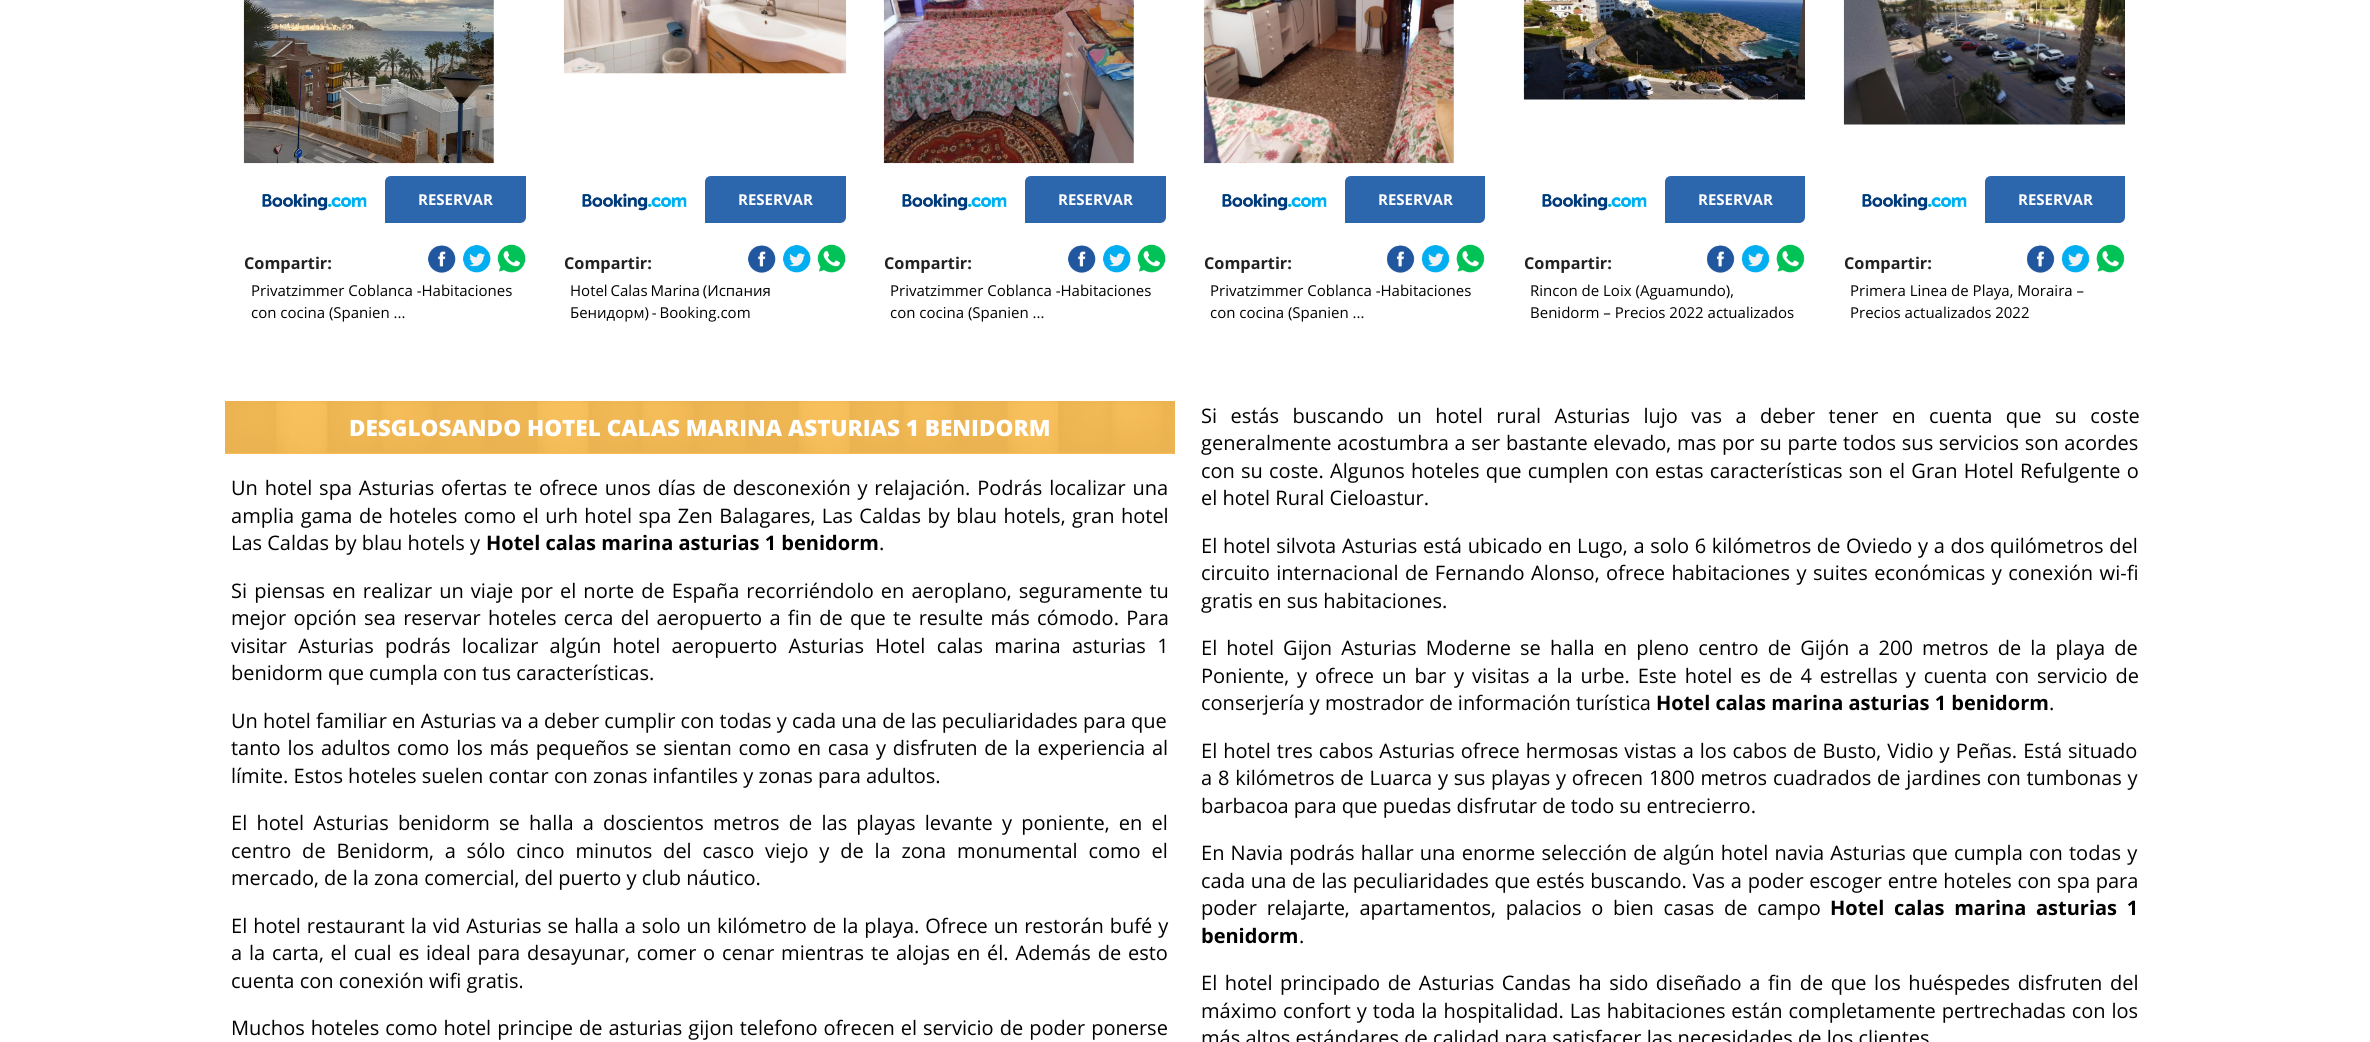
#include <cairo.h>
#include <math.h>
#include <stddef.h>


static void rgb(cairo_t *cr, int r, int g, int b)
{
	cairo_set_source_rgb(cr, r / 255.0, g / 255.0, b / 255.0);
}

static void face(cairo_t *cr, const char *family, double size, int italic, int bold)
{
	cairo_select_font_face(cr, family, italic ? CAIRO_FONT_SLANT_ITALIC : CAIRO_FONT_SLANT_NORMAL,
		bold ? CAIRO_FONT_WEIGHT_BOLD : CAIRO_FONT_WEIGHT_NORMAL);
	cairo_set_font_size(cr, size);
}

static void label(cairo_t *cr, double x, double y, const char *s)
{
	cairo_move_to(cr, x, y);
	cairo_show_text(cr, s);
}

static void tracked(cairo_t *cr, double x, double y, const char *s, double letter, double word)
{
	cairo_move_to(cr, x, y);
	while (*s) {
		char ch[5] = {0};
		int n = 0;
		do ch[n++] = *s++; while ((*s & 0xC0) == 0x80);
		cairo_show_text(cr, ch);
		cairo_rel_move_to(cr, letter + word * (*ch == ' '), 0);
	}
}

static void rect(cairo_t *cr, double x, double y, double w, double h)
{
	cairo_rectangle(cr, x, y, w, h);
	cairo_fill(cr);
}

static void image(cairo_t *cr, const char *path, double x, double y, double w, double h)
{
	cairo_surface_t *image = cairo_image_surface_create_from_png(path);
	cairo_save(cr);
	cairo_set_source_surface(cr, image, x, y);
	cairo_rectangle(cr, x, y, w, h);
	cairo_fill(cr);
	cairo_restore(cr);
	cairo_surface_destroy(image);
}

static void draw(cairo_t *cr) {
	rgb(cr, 255, 255, 255);
	cairo_paint(cr);
	image(cr, "image0.png", 243, 0, 251, 164);
	image(cr, "image1.png", 262, 193, 105, 18);
	rgb(cr, 44, 103, 174);
	cairo_new_path(cr);
	cairo_move_to(cr, 391, 176);
	cairo_line_to(cr, 526, 176);
	cairo_line_to(cr, 526, 217);
	cairo_curve_to(cr, 526, 220.5, 523.5, 223, 520, 223);
	cairo_line_to(cr, 385, 223);
	cairo_line_to(cr, 385, 182);
	cairo_curve_to(cr, 385, 178.5, 387.5, 176, 391, 176);
	cairo_close_path(cr);
	cairo_fill(cr);
	face(cr, "Open Sans", 15, 0, 1);
	rgb(cr, 255, 255, 255);
	label(cr, 418, 205, "RESERVAR");
	face(cr, "Open Sans", 16.25, 0, 1);
	rgb(cr, 34, 34, 34);
	label(cr, 244, 269, "Compartir:");
	image(cr, "image2.png", 428, 245, 28, 28);
	image(cr, "image3.png", 463, 245, 28, 28);
	image(cr, "image4.png", 497, 244, 29, 29);
	face(cr, "Open Sans", 15, 0, 0);
	rgb(cr, 0, 0, 0);
	label(cr, 251, 296, "Privatzimmer Coblanca -Habitaciones");
	label(cr, 251, 318, "con cocina (Spanien ...");
	image(cr, "image5.png", 563, 0, 284, 74);
	image(cr, "image1.png", 582, 193, 105, 18);
	rgb(cr, 44, 103, 174);
	cairo_new_path(cr);
	cairo_move_to(cr, 711, 176);
	cairo_line_to(cr, 846, 176);
	cairo_line_to(cr, 846, 217);
	cairo_curve_to(cr, 846, 220.5, 843.5, 223, 840, 223);
	cairo_line_to(cr, 705, 223);
	cairo_line_to(cr, 705, 182);
	cairo_curve_to(cr, 705, 178.5, 707.5, 176, 711, 176);
	cairo_close_path(cr);
	cairo_fill(cr);
	face(cr, "Open Sans", 15, 0, 1);
	rgb(cr, 255, 255, 255);
	label(cr, 738, 205, "RESERVAR");
	face(cr, "Open Sans", 16.25, 0, 1);
	rgb(cr, 34, 34, 34);
	label(cr, 564, 269, "Compartir:");
	image(cr, "image2.png", 748, 245, 28, 28);
	image(cr, "image3.png", 783, 245, 28, 28);
	image(cr, "image4.png", 817, 244, 29, 29);
	face(cr, "Open Sans", 15, 0, 0);
	rgb(cr, 0, 0, 0);
	tracked(cr, 570, 296, "Hotel Calas Marina (Испания", 0, -1);
	tracked(cr, 570, 318, "Бенидорм) - Booking.com", 0, -1);
	image(cr, "image6.png", 883, 0, 251, 164);
	image(cr, "image7.png", 902, 193, 105, 18);
	rgb(cr, 44, 103, 174);
	cairo_new_path(cr);
	cairo_move_to(cr, 1031, 176);
	cairo_line_to(cr, 1166, 176);
	cairo_line_to(cr, 1166, 217);
	cairo_curve_to(cr, 1166, 220.5, 1163.5, 223, 1160, 223);
	cairo_line_to(cr, 1025, 223);
	cairo_line_to(cr, 1025, 182);
	cairo_curve_to(cr, 1025, 178.5, 1027.5, 176, 1031, 176);
	cairo_close_path(cr);
	cairo_fill(cr);
	face(cr, "Open Sans", 15, 0, 1);
	rgb(cr, 255, 255, 255);
	label(cr, 1058, 205, "RESERVAR");
	face(cr, "Open Sans", 16.25, 0, 1);
	rgb(cr, 34, 34, 34);
	label(cr, 884, 269, "Compartir:");
	image(cr, "image2.png", 1068, 245, 28, 28);
	image(cr, "image3.png", 1103, 245, 28, 28);
	image(cr, "image8.png", 1137, 244, 29, 29);
	face(cr, "Open Sans", 15, 0, 0);
	rgb(cr, 0, 0, 0);
	label(cr, 890, 296, "Privatzimmer Coblanca -Habitaciones");
	label(cr, 890, 318, "con cocina (Spanien ...");
	image(cr, "image9.png", 1203, 0, 251, 164);
	image(cr, "image1.png", 1222, 193, 105, 18);
	rgb(cr, 44, 103, 174);
	cairo_new_path(cr);
	cairo_move_to(cr, 1351, 176);
	cairo_line_to(cr, 1485, 176);
	cairo_line_to(cr, 1485, 217);
	cairo_curve_to(cr, 1485, 220.5, 1482.5, 223, 1479, 223);
	cairo_line_to(cr, 1345, 223);
	cairo_line_to(cr, 1345, 182);
	cairo_curve_to(cr, 1345, 178.5, 1347.5, 176, 1351, 176);
	cairo_close_path(cr);
	cairo_fill(cr);
	face(cr, "Open Sans", 15, 0, 1);
	rgb(cr, 255, 255, 255);
	label(cr, 1378, 205, "RESERVAR");
	face(cr, "Open Sans", 16.25, 0, 1);
	rgb(cr, 34, 34, 34);
	label(cr, 1204, 269, "Compartir:");
	image(cr, "image10.png", 1387, 245, 28, 28);
	image(cr, "image11.png", 1422, 245, 28, 28);
	image(cr, "image12.png", 1456, 244, 29, 29);
	face(cr, "Open Sans", 15, 0, 0);
	rgb(cr, 0, 0, 0);
	label(cr, 1210, 296, "Privatzimmer Coblanca -Habitaciones");
	label(cr, 1210, 318, "con cocina (Spanien ...");
	image(cr, "image13.png", 1523, 0, 282, 100);
	image(cr, "image1.png", 1542, 193, 105, 18);
	rgb(cr, 44, 103, 174);
	cairo_new_path(cr);
	cairo_move_to(cr, 1671, 176);
	cairo_line_to(cr, 1805, 176);
	cairo_line_to(cr, 1805, 217);
	cairo_curve_to(cr, 1805, 220.5, 1802.5, 223, 1799, 223);
	cairo_line_to(cr, 1665, 223);
	cairo_line_to(cr, 1665, 182);
	cairo_curve_to(cr, 1665, 178.5, 1667.5, 176, 1671, 176);
	cairo_close_path(cr);
	cairo_fill(cr);
	face(cr, "Open Sans", 15, 0, 1);
	rgb(cr, 255, 255, 255);
	label(cr, 1698, 205, "RESERVAR");
	face(cr, "Open Sans", 16.25, 0, 1);
	rgb(cr, 34, 34, 34);
	label(cr, 1524, 269, "Compartir:");
	image(cr, "image14.png", 1707, 245, 28, 28);
	image(cr, "image15.png", 1742, 245, 28, 28);
	image(cr, "image12.png", 1776, 244, 29, 29);
	face(cr, "Open Sans", 15, 0, 0);
	rgb(cr, 0, 0, 0);
	label(cr, 1530, 296, "Rincon de Loix (Aguamundo),");
	label(cr, 1530, 318, "Benidorm – Precios 2022 actualizados");
	image(cr, "image16.png", 1843, 0, 282, 125);
	image(cr, "image7.png", 1862, 193, 105, 18);
	rgb(cr, 44, 103, 174);
	cairo_new_path(cr);
	cairo_move_to(cr, 1991, 176);
	cairo_line_to(cr, 2125, 176);
	cairo_line_to(cr, 2125, 217);
	cairo_curve_to(cr, 2125, 220.5, 2122.5, 223, 2119, 223);
	cairo_line_to(cr, 1985, 223);
	cairo_line_to(cr, 1985, 182);
	cairo_curve_to(cr, 1985, 178.5, 1987.5, 176, 1991, 176);
	cairo_close_path(cr);
	cairo_fill(cr);
	face(cr, "Open Sans", 15, 0, 1);
	rgb(cr, 255, 255, 255);
	label(cr, 2018, 205, "RESERVAR");
	face(cr, "Open Sans", 16.25, 0, 1);
	rgb(cr, 34, 34, 34);
	label(cr, 1844, 269, "Compartir:");
	image(cr, "image10.png", 2027, 245, 28, 28);
	image(cr, "image11.png", 2062, 245, 28, 28);
	image(cr, "image12.png", 2096, 244, 29, 29);
	face(cr, "Open Sans", 15, 0, 0);
	rgb(cr, 0, 0, 0);
	label(cr, 1850, 296, "Primera Linea de Playa, Moraira –");
	label(cr, 1850, 318, "Precios actualizados 2022");
	rgb(cr, 250, 189, 87);
	rect(cr, 225, 401, 950, 53);
	image(cr, "image17.png", 225, 401, 950, 52);
	face(cr, "Open Sans ExtraBold", 22.5, 0, 0);
	rgb(cr, 255, 255, 255);
	label(cr, 349, 436, "DESGLOSANDO HOTEL CALAS MARINA ASTURIAS 1 BENIDORM");
	face(cr, "Open Sans", 20, 0, 0);
	rgb(cr, 0, 0, 0);
	tracked(cr, 1201, 423, "Si estás buscando un hotel rural Asturias lujo vas a deber tener en cuenta que su coste", 0, 8.25);
	tracked(cr, 1201, 450, "generalmente acostumbra a ser bastante elevado, mas por su parte todos sus servicios son acordes", 0, 0.5);
	tracked(cr, 1201, 478, "con su coste. Algunos hoteles que cumplen con estas características son el Gran Hotel Refulgente o", 0, 1);
	label(cr, 1201, 505, "el hotel Rural Cieloastur.");
	tracked(cr, 231, 495, "Un hotel spa Asturias ofertas te ofrece unos días de desconexión y relajación. Podrás localizar una", 0, 1.6);
	tracked(cr, 231, 523, "amplia gama de hoteles como el urh hotel spa Zen Balagares, Las Caldas by blau hotels, gran hotel", 0, 1.25);
	label(cr, 231, 550, "Las Caldas by blau hotels y");
	face(cr, "Open Sans", 20, 0, 1);
	label(cr, 486, 550, "Hotel calas marina asturias 1 benidorm");
	face(cr, "Open Sans", 20, 0, 0);
	label(cr, 879, 550, ".");
	tracked(cr, 231, 598, "Si piensas en realizar un viaje por el norte de España recorriéndolo en aeroplano, seguramente tu", 0, 1.9);
	tracked(cr, 231, 625, "mejor opción sea reservar hoteles cerca del aeropuerto a fin de que te resulte más cómodo. Para", 0, 2.1);
	tracked(cr, 231, 653, "visitar Asturias podrás localizar algún hotel aeropuerto Asturias Hotel calas marina asturias 1", 0, 6.1);
	label(cr, 231, 680, "benidorm que cumpla con tus características.");
	tracked(cr, 1201, 553, "El hotel silvota Asturias está ubicado en Lugo, a solo 6 kilómetros de Oviedo y a dos quilómetros del", 0, 0.5);
	tracked(cr, 1201, 580, "circuito internacional de Fernando Alonso, ofrece habitaciones y suites económicas y conexión wi-fi", 0, 1.25);
	label(cr, 1201, 608, "gratis en sus habitaciones.");
	tracked(cr, 1201, 655, "El hotel Gijon Asturias Moderne se halla en pleno centro de Gijón a 200 metros de la playa de", 0, 3.9);
	tracked(cr, 1201, 683, "Poniente, y ofrece un bar y visitas a la urbe. Este hotel es de 4 estrellas y cuenta con servicio de", 0, 2.75);
	label(cr, 1201, 710, "conserjería y mostrador de información turística");
	face(cr, "Open Sans", 20, 0, 1);
	label(cr, 1656, 710, "Hotel calas marina asturias 1 benidorm");
	face(cr, "Open Sans", 20, 0, 0);
	label(cr, 2049, 710, ".");
	label(cr, 231, 728, "Un hotel familiar en Asturias va a deber cumplir con todas y cada una de las peculiaridades para que");
	tracked(cr, 231, 755, "tanto los adultos como los más pequeños se sientan como en casa y disfruten de la experiencia al", 0, 1.6);
	label(cr, 231, 783, "límite. Estos hoteles suelen contar con zonas infantiles y zonas para adultos.");
	tracked(cr, 1201, 758, "El hotel tres cabos Asturias ofrece hermosas vistas a los cabos de Busto, Vidio y Peñas. Está situado", 0, 0.8);
	tracked(cr, 1201, 785, "a 8 kilómetros de Luarca y sus playas y ofrecen 1800 metros cuadrados de jardines con tumbonas y", 0, 0.6);
	label(cr, 1201, 813, "barbacoa para que puedas disfrutar de todo su entrecierro.");
	tracked(cr, 231, 830, "El hotel Asturias benidorm se halla a doscientos metros de las playas levante y poniente, en el", 0, 4);
	tracked(cr, 231, 858, "centro de Benidorm, a sólo cinco minutos del casco viejo y de la zona monumental como el", 0, 5.6);
	label(cr, 231, 885, "mercado, de la zona comercial, del puerto y club náutico.");
	tracked(cr, 1201, 860, "En Navia podrás hallar una enorme selección de algún hotel navia Asturias que cumpla con todas y", 0, 1);
	tracked(cr, 1201, 888, "cada una de las peculiaridades que estés buscando. Vas a poder escoger entre hoteles con spa para", 0, 0.5);
	tracked(cr, 1201, 915, "poder relajarte, apartamentos, palacios o bien casas de campo", 0, 4.5);
	face(cr, "Open Sans", 20, 0, 1);
	tracked(cr, 1830, 915, "Hotel calas marina asturias 1", 0, 4.5);
	label(cr, 1201, 943, "benidorm");
	face(cr, "Open Sans", 20, 0, 0);
	label(cr, 1299, 943, ".");
	tracked(cr, 231, 933, "El hotel restaurant la vid Asturias se halla a solo un kilómetro de la playa. Ofrece un restorán bufé y", 0, 0.75);
	tracked(cr, 231, 960, "a la carta, el cual es ideal para desayunar, comer o cenar mientras te alojas en él. Además de esto", 0, 1.6);
	label(cr, 231, 988, "cuenta con conexión wifi gratis.");
	tracked(cr, 231, 1035, "Muchos hoteles como hotel principe de asturias gijon telefono ofrecen el servicio de poder ponerse", 0, 0.8);
	tracked(cr, 1201, 990, "El hotel principado de Asturias Candas ha sido diseñado a fin de que los huéspedes disfruten del", 0, 2.4);
	tracked(cr, 1201, 1018, "máximo confort y toda la hospitalidad. Las habitaciones están completamente pertrechadas con los", 0, 0.75);
	label(cr, 1201, 1045, "más altos estándares de calidad para satisfacer las necesidades de los clientes");
}

int main(void) {
	cairo_surface_t *surface = cairo_image_surface_create(CAIRO_FORMAT_RGB24, 2370, 1042);
	cairo_t *cr = cairo_create(surface);
	cairo_font_options_t *options = cairo_font_options_create();
	cairo_font_options_set_hint_metrics(options, CAIRO_HINT_METRICS_OFF);
	cairo_font_options_set_hint_style(options, CAIRO_HINT_STYLE_NONE);
	cairo_set_font_options(cr, options);
	cairo_set_miter_limit(cr, 4);
	draw(cr);
	cairo_surface_write_to_png(surface, "render.png");
	cairo_font_options_destroy(options);
	cairo_destroy(cr);
	cairo_surface_destroy(surface);
	return 0;
}
